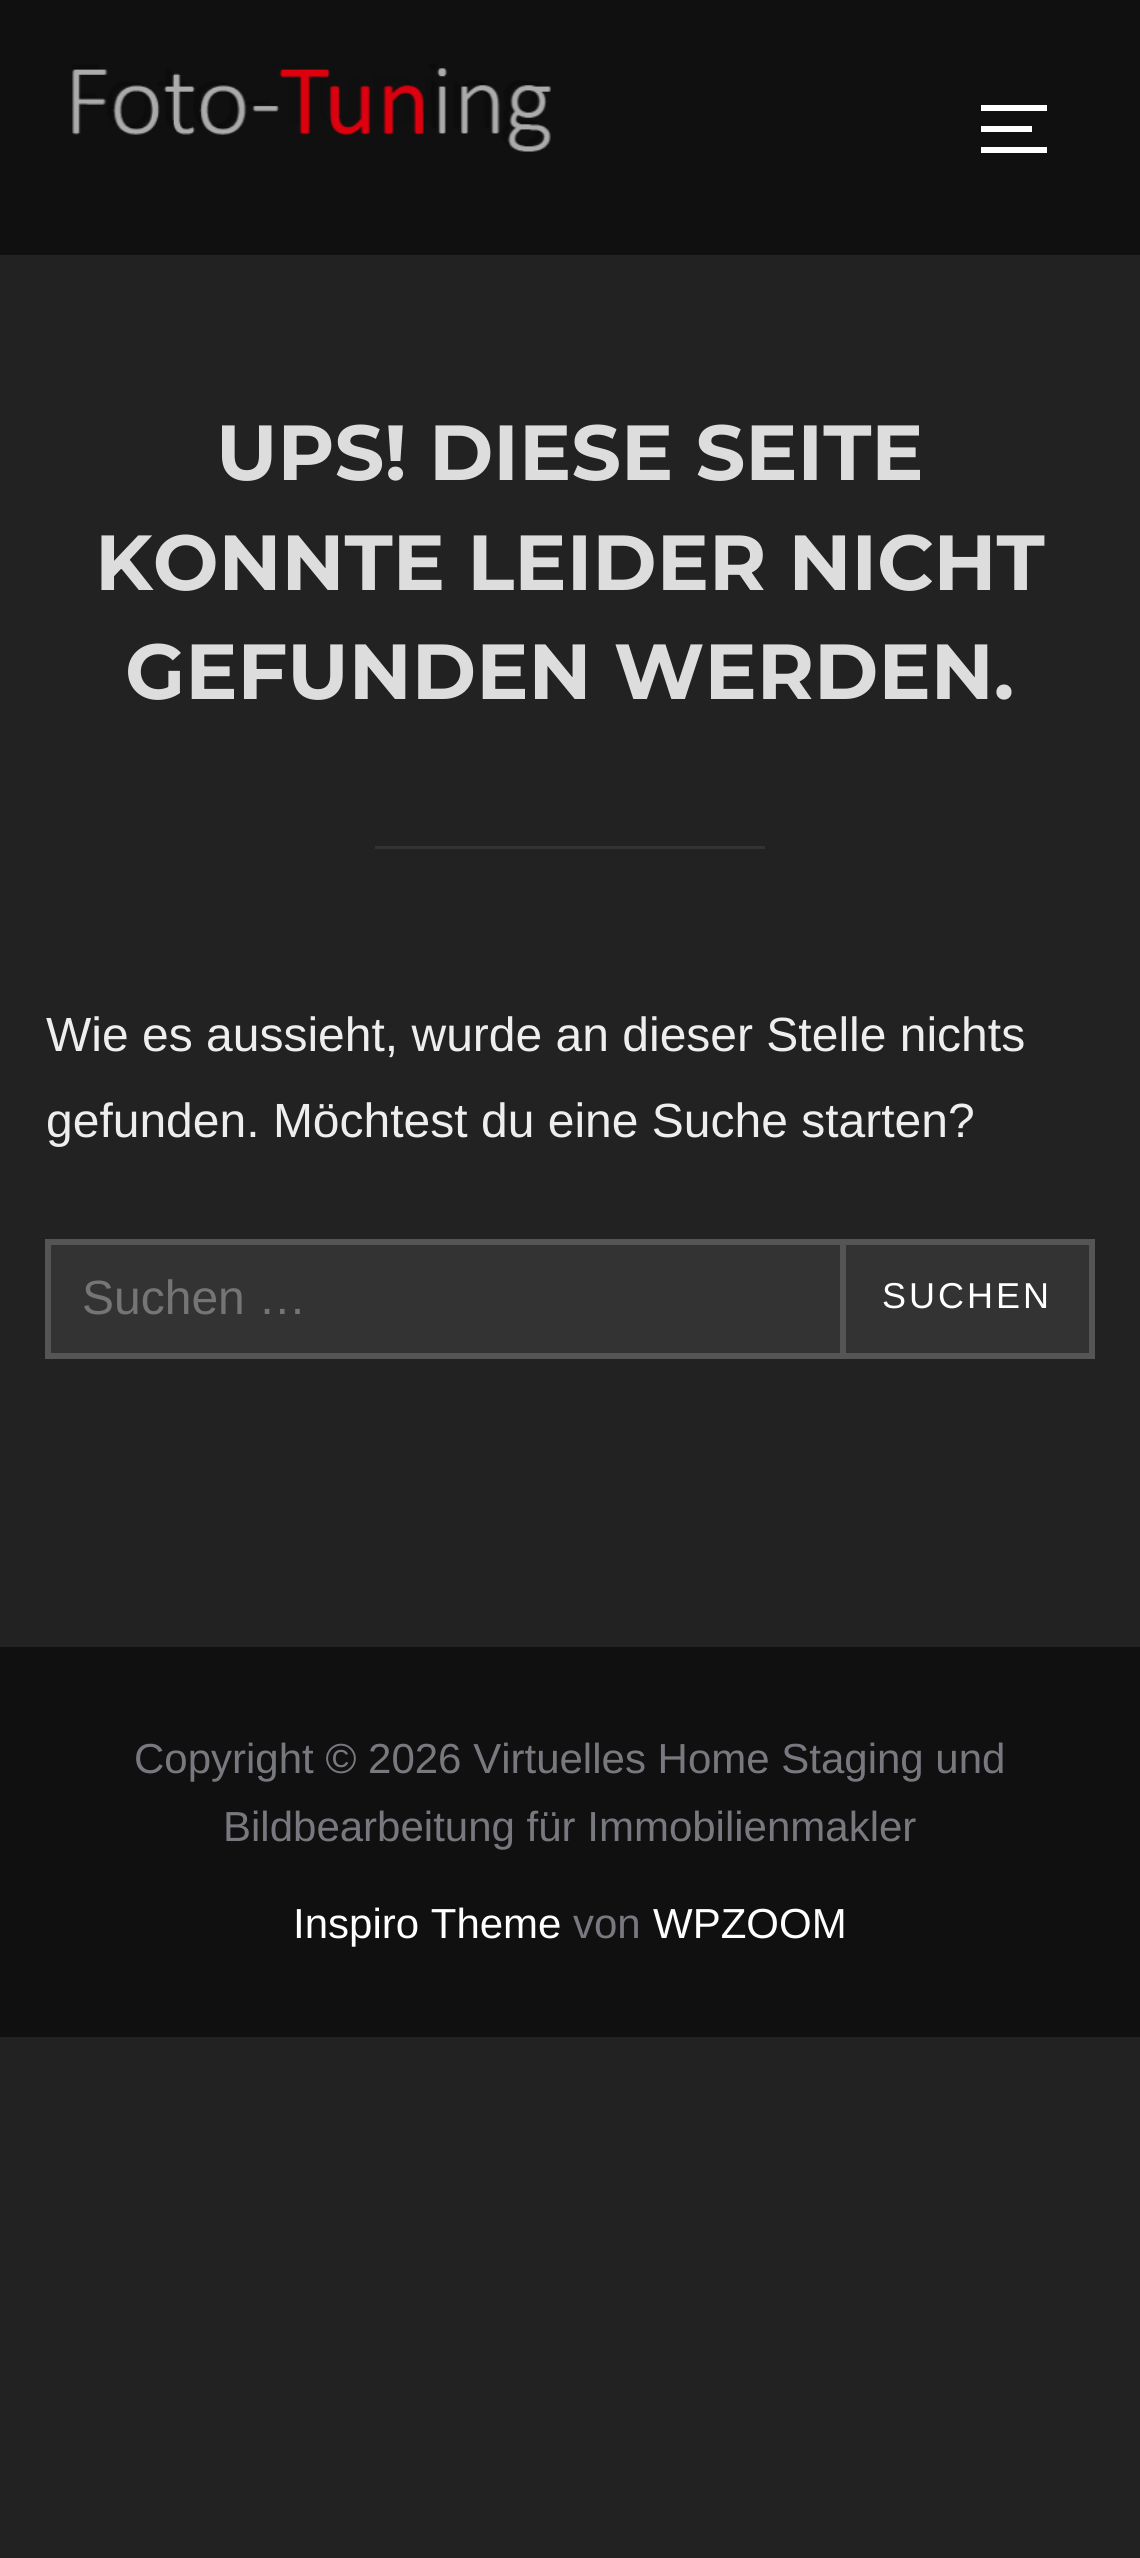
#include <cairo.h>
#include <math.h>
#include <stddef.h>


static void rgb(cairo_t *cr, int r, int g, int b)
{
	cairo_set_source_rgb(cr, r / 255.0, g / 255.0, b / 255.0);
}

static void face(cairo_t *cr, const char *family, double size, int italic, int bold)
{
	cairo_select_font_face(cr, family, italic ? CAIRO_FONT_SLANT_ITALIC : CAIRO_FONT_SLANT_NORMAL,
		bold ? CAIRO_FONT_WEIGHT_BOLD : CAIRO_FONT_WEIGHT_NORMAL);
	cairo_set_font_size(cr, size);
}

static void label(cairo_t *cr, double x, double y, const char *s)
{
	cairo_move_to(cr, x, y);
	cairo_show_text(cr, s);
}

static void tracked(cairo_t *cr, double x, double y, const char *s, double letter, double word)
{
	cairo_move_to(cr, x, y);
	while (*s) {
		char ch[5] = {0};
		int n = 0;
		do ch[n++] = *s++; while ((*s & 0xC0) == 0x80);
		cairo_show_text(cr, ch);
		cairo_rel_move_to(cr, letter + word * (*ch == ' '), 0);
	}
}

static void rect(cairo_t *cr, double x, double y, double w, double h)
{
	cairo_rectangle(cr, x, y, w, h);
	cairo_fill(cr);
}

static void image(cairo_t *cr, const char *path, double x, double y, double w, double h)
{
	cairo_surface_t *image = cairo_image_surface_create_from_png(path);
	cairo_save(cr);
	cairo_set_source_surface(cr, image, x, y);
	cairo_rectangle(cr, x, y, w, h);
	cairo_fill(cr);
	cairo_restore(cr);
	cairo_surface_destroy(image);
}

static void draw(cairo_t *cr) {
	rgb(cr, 34, 34, 34);
	cairo_paint(cr);
	rgb(cr, 16, 16, 16);
	rect(cr, 0, 0, 1140, 255);
	image(cr, "image0.png", 72, 63, 479, 89);
	rgb(cr, 255, 255, 255);
	rect(cr, 981, 105, 66, 6);
	rect(cr, 981, 126, 51, 6);
	rect(cr, 981, 147, 66, 6);
	face(cr, "Montserrat Thin", 78, 0, 0);
	rgb(cr, 221, 221, 221);
	label(cr, 216, 480, "UPS! DIESE SEITE");
	label(cr, 95, 590, "KONNTE LEIDER NICHT");
	label(cr, 125, 699, "GEFUNDEN WERDEN.");
	rgb(cr, 51, 51, 51);
	rect(cr, 375, 846, 390, 3);
	face(cr, "Liberation Sans", 48, 0, 0);
	rgb(cr, 238, 238, 238);
	label(cr, 46, 1051, "Wie es aussieht, wurde an dieser Stelle nichts");
	label(cr, 46, 1137, "gefunden. Möchtest du eine Suche starten?");
	rgb(cr, 51, 51, 51);
	cairo_rectangle(cr, 48, 1242, 1044, 114);
	cairo_fill_preserve(cr);
	rgb(cr, 86, 85, 85);
	cairo_set_line_width(cr, 6);
	cairo_stroke(cr);
	rgb(cr, 117, 117, 117);
	label(cr, 82, 1314, "Suchen …");
	cairo_rectangle(cr, 843, 1242, 249, 114);
	rgb(cr, 86, 85, 85);
	cairo_stroke(cr);
	face(cr, "Liberation Sans", 36, 0, 0);
	rgb(cr, 255, 255, 255);
	tracked(cr, 882, 1308, "SUCHEN", 3, 0);
	rgb(cr, 16, 16, 16);
	rect(cr, 0, 1647, 1140, 390);
	face(cr, "Liberation Sans", 42, 0, 0);
	rgb(cr, 120, 120, 127);
	label(cr, 134, 1773, "Copyright © 2026 Virtuelles Home Staging und");
	label(cr, 223, 1841, "Bildbearbeitung für Immobilienmakler");
	rgb(cr, 255, 255, 255);
	label(cr, 293, 1938, "Inspiro Theme");
	rgb(cr, 120, 120, 127);
	label(cr, 573, 1938, "von");
	rgb(cr, 255, 255, 255);
	label(cr, 653, 1938, "WPZOOM");
}

int main(void) {
	cairo_surface_t *surface = cairo_image_surface_create(CAIRO_FORMAT_RGB24, 1140, 2558);
	cairo_t *cr = cairo_create(surface);
	cairo_font_options_t *options = cairo_font_options_create();
	cairo_font_options_set_hint_metrics(options, CAIRO_HINT_METRICS_OFF);
	cairo_font_options_set_hint_style(options, CAIRO_HINT_STYLE_NONE);
	cairo_set_font_options(cr, options);
	cairo_set_miter_limit(cr, 4);
	draw(cr);
	cairo_surface_write_to_png(surface, "render.png");
	cairo_font_options_destroy(options);
	cairo_destroy(cr);
	cairo_surface_destroy(surface);
	return 0;
}
